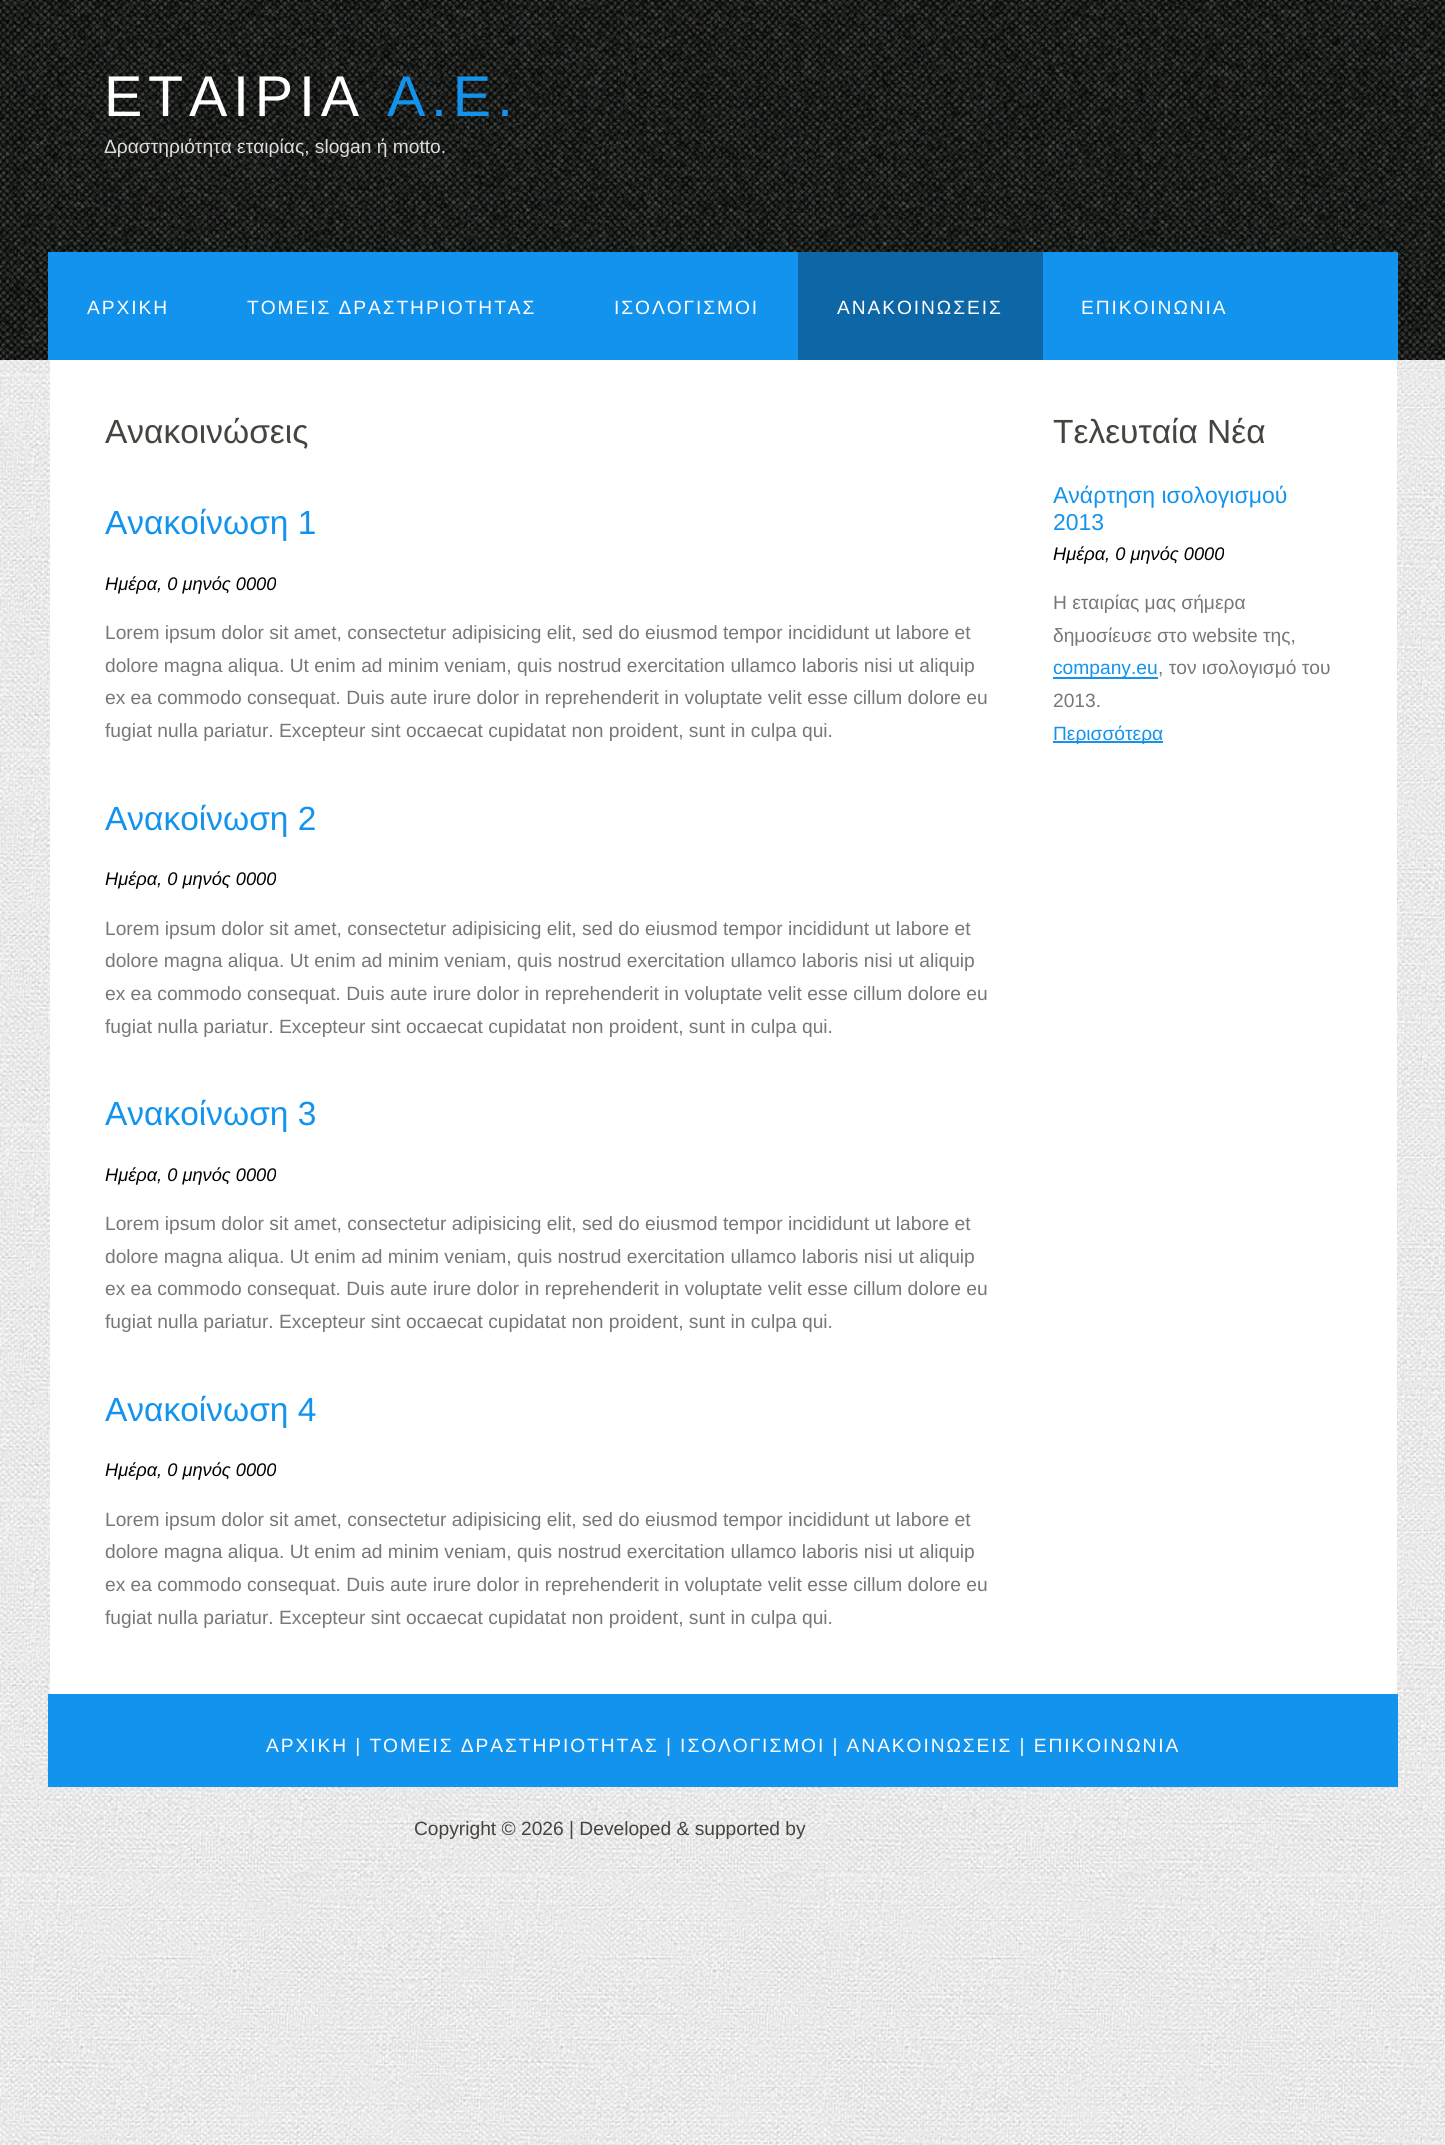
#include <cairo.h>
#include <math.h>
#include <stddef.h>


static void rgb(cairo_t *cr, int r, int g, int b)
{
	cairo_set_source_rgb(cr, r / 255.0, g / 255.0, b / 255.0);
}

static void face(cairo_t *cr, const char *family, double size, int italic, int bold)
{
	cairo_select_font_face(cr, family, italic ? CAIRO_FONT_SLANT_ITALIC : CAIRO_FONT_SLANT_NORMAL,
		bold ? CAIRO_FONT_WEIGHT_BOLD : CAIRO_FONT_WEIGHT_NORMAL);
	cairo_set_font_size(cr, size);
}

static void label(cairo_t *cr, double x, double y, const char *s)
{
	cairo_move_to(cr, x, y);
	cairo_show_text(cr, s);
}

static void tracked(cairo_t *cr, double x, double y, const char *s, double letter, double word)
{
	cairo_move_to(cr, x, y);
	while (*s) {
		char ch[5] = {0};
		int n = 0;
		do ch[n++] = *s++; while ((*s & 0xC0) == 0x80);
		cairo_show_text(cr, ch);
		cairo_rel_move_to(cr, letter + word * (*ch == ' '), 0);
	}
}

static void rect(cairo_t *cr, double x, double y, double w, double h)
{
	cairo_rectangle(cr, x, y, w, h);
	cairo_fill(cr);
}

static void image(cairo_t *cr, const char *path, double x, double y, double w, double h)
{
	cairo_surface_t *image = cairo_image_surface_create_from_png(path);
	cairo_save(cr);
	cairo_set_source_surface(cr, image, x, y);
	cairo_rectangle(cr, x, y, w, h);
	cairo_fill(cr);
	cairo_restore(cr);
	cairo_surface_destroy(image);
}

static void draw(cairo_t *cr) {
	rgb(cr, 255, 255, 255);
	cairo_paint(cr);
	image(cr, "image0.png", 0, 360, 1445, 1785);
	image(cr, "image1.png", 0, 0, 1445, 360);
	face(cr, "Liberation Sans", 57.5, 0, 0);
	rgb(cr, 255, 255, 255);
	tracked(cr, 104, 116, "ΕΤΑΙΡΙΑ", 5.75, 0);
	rgb(cr, 18, 147, 238);
	tracked(cr, 387, 116, "Α.Ε.", 5.75, 0);
	face(cr, "Liberation Sans", 19.2, 0, 0);
	rgb(cr, 221, 221, 221);
	label(cr, 104, 153, "Δραστηριότητα εταιρίας, slogan ή motto.");
	rgb(cr, 18, 147, 238);
	rect(cr, 48, 252, 1350, 108);
	rgb(cr, 255, 255, 255);
	tracked(cr, 87, 314, "ΑΡΧΙΚΗ", 1.92, 0);
	tracked(cr, 247, 314, "ΤΟΜΕΙΣ ΔΡΑΣΤΗΡΙΟΤΗΤΑΣ", 1.92, 0);
	tracked(cr, 614, 314, "ΙΣΟΛΟΓΙΣΜΟΙ", 1.92, 0);
	rgb(cr, 13, 102, 165);
	rect(cr, 798, 252, 245, 108);
	rgb(cr, 255, 255, 255);
	tracked(cr, 837, 314, "ΑΝΑΚΟΙΝΩΣΕΙΣ", 1.92, 0);
	tracked(cr, 1081, 314, "ΕΠΙΚΟΙΝΩΝΙΑ", 1.92, 0);
	rect(cr, 50, 360, 1347, 1334);
	face(cr, "Liberation Sans", 33.5, 0, 0);
	rgb(cr, 71, 67, 63);
	label(cr, 105, 443, "Ανακοινώσεις");
	rgb(cr, 18, 147, 238);
	label(cr, 105, 534, "Ανακοίνωση 1");
	face(cr, "Liberation Sans", 18.25, 1, 0);
	rgb(cr, 0, 0, 0);
	label(cr, 105, 590, "Ημέρα, 0 μηνός 0000");
	face(cr, "Liberation Sans", 19.2, 0, 0);
	rgb(cr, 119, 119, 119);
	label(cr, 105, 639, "Lorem ipsum dolor sit amet, consectetur adipisicing elit, sed do eiusmod tempor incididunt ut labore et");
	label(cr, 105, 672, "dolore magna aliqua. Ut enim ad minim veniam, quis nostrud exercitation ullamco laboris nisi ut aliquip");
	label(cr, 105, 704, "ex ea commodo consequat. Duis aute irure dolor in reprehenderit in voluptate velit esse cillum dolore eu");
	label(cr, 105, 737, "fugiat nulla pariatur. Excepteur sint occaecat cupidatat non proident, sunt in culpa qui.");
	face(cr, "Liberation Sans", 33.5, 0, 0);
	rgb(cr, 18, 147, 238);
	label(cr, 105, 830, "Ανακοίνωση 2");
	face(cr, "Liberation Sans", 18.25, 1, 0);
	rgb(cr, 0, 0, 0);
	label(cr, 105, 885, "Ημέρα, 0 μηνός 0000");
	face(cr, "Liberation Sans", 19.2, 0, 0);
	rgb(cr, 119, 119, 119);
	label(cr, 105, 935, "Lorem ipsum dolor sit amet, consectetur adipisicing elit, sed do eiusmod tempor incididunt ut labore et");
	label(cr, 105, 967, "dolore magna aliqua. Ut enim ad minim veniam, quis nostrud exercitation ullamco laboris nisi ut aliquip");
	label(cr, 105, 1000, "ex ea commodo consequat. Duis aute irure dolor in reprehenderit in voluptate velit esse cillum dolore eu");
	label(cr, 105, 1033, "fugiat nulla pariatur. Excepteur sint occaecat cupidatat non proident, sunt in culpa qui.");
	face(cr, "Liberation Sans", 33.5, 0, 0);
	rgb(cr, 18, 147, 238);
	label(cr, 105, 1125, "Ανακοίνωση 3");
	face(cr, "Liberation Sans", 18.25, 1, 0);
	rgb(cr, 0, 0, 0);
	label(cr, 105, 1181, "Ημέρα, 0 μηνός 0000");
	face(cr, "Liberation Sans", 19.2, 0, 0);
	rgb(cr, 119, 119, 119);
	label(cr, 105, 1230, "Lorem ipsum dolor sit amet, consectetur adipisicing elit, sed do eiusmod tempor incididunt ut labore et");
	label(cr, 105, 1263, "dolore magna aliqua. Ut enim ad minim veniam, quis nostrud exercitation ullamco laboris nisi ut aliquip");
	label(cr, 105, 1295, "ex ea commodo consequat. Duis aute irure dolor in reprehenderit in voluptate velit esse cillum dolore eu");
	label(cr, 105, 1328, "fugiat nulla pariatur. Excepteur sint occaecat cupidatat non proident, sunt in culpa qui.");
	face(cr, "Liberation Sans", 33.5, 0, 0);
	rgb(cr, 18, 147, 238);
	label(cr, 105, 1421, "Ανακοίνωση 4");
	face(cr, "Liberation Sans", 18.25, 1, 0);
	rgb(cr, 0, 0, 0);
	label(cr, 105, 1476, "Ημέρα, 0 μηνός 0000");
	face(cr, "Liberation Sans", 19.2, 0, 0);
	rgb(cr, 119, 119, 119);
	label(cr, 105, 1526, "Lorem ipsum dolor sit amet, consectetur adipisicing elit, sed do eiusmod tempor incididunt ut labore et");
	label(cr, 105, 1558, "dolore magna aliqua. Ut enim ad minim veniam, quis nostrud exercitation ullamco laboris nisi ut aliquip");
	label(cr, 105, 1591, "ex ea commodo consequat. Duis aute irure dolor in reprehenderit in voluptate velit esse cillum dolore eu");
	label(cr, 105, 1624, "fugiat nulla pariatur. Excepteur sint occaecat cupidatat non proident, sunt in culpa qui.");
	face(cr, "Liberation Sans", 33.5, 0, 0);
	rgb(cr, 71, 67, 63);
	label(cr, 1053, 443, "Τελευταία Νέα");
	face(cr, "Liberation Sans", 23, 0, 0);
	rgb(cr, 18, 147, 238);
	label(cr, 1053, 503, "Ανάρτηση ισολογισμού");
	label(cr, 1053, 530, "2013");
	face(cr, "Liberation Sans", 18.25, 1, 0);
	rgb(cr, 0, 0, 0);
	label(cr, 1053, 560, "Ημέρα, 0 μηνός 0000");
	face(cr, "Liberation Sans", 19.2, 0, 0);
	rgb(cr, 119, 119, 119);
	label(cr, 1053, 609, "Η εταιρίας μας σήμερα");
	label(cr, 1053, 642, "δημοσίευσε στο website της,");
	rgb(cr, 18, 147, 238);
	rect(cr, 1053, 677, 105, 2);
	label(cr, 1053, 674, "company.eu");
	rgb(cr, 119, 119, 119);
	label(cr, 1158, 674, ", τον ισολογισμό του");
	label(cr, 1053, 707, "2013.");
	rgb(cr, 18, 147, 238);
	rect(cr, 1053, 741, 110, 2);
	label(cr, 1053, 740, "Περισσότερα");
	rect(cr, 48, 1694, 1350, 93);
	rgb(cr, 255, 255, 255);
	tracked(cr, 266, 1752, "ΑΡΧΙΚΗ | ΤΟΜΕΙΣ ΔΡΑΣΤΗΡΙΟΤΗΤΑΣ | ΙΣΟΛΟΓΙΣΜΟΙ | ΑΝΑΚΟΙΝΩΣΕΙΣ | ΕΠΙΚΟΙΝΩΝΙΑ", 1.92, 0);
	rgb(cr, 71, 67, 63);
	label(cr, 414, 1835, "Copyright © 2026 | Developed & supported by");
}

int main(void) {
	cairo_surface_t *surface = cairo_image_surface_create(CAIRO_FORMAT_RGB24, 1445, 2145);
	cairo_t *cr = cairo_create(surface);
	cairo_font_options_t *options = cairo_font_options_create();
	cairo_font_options_set_hint_metrics(options, CAIRO_HINT_METRICS_OFF);
	cairo_font_options_set_hint_style(options, CAIRO_HINT_STYLE_NONE);
	cairo_set_font_options(cr, options);
	cairo_set_miter_limit(cr, 4);
	draw(cr);
	cairo_surface_write_to_png(surface, "render.png");
	cairo_font_options_destroy(options);
	cairo_destroy(cr);
	cairo_surface_destroy(surface);
	return 0;
}
